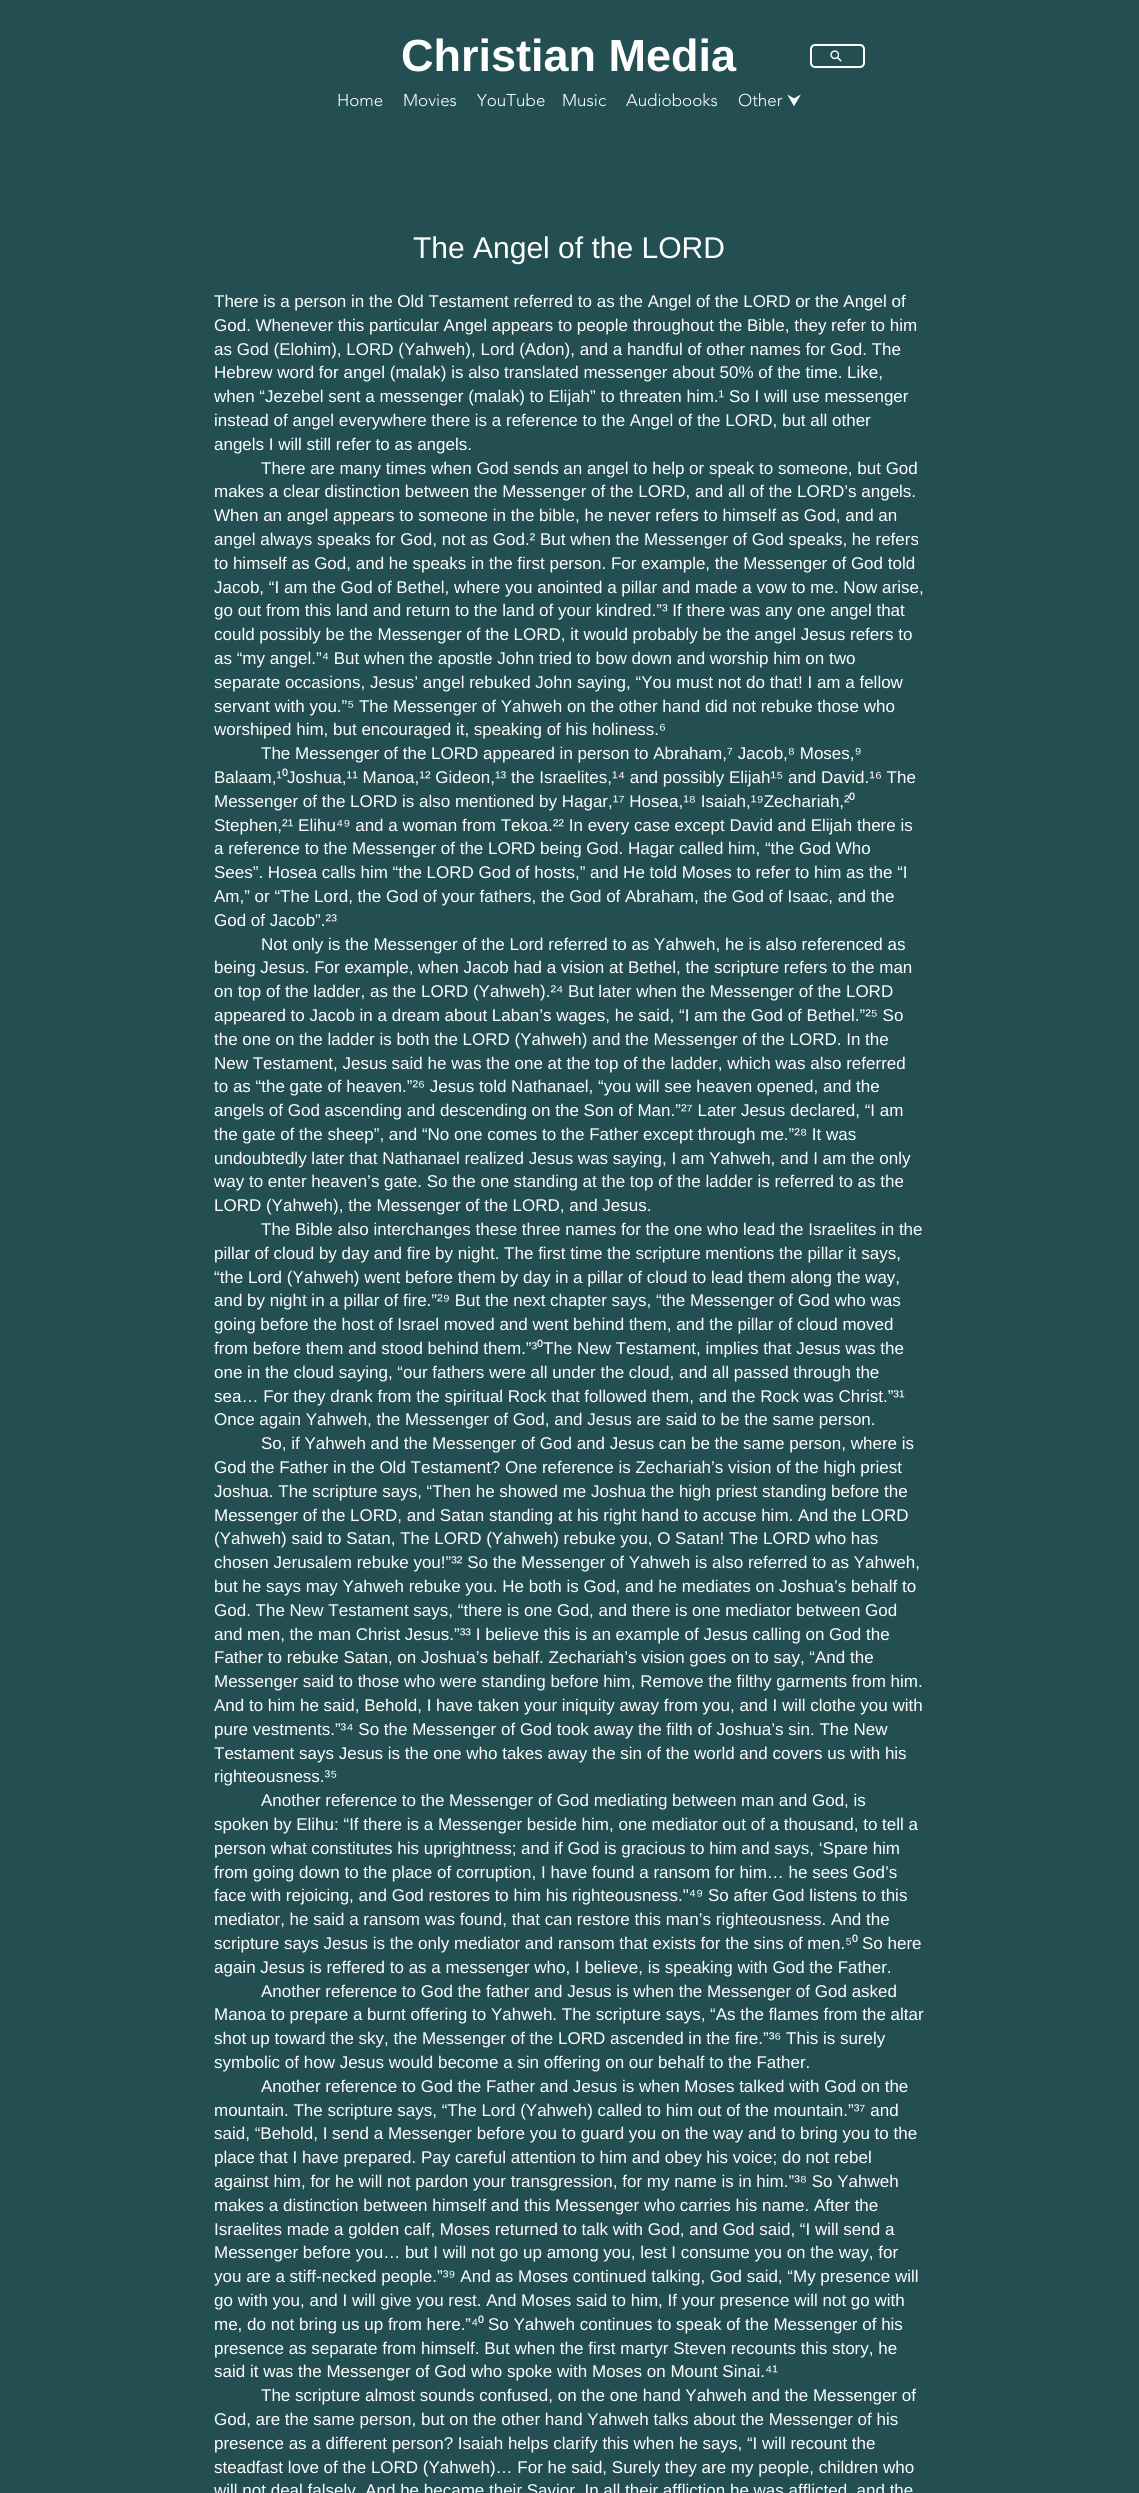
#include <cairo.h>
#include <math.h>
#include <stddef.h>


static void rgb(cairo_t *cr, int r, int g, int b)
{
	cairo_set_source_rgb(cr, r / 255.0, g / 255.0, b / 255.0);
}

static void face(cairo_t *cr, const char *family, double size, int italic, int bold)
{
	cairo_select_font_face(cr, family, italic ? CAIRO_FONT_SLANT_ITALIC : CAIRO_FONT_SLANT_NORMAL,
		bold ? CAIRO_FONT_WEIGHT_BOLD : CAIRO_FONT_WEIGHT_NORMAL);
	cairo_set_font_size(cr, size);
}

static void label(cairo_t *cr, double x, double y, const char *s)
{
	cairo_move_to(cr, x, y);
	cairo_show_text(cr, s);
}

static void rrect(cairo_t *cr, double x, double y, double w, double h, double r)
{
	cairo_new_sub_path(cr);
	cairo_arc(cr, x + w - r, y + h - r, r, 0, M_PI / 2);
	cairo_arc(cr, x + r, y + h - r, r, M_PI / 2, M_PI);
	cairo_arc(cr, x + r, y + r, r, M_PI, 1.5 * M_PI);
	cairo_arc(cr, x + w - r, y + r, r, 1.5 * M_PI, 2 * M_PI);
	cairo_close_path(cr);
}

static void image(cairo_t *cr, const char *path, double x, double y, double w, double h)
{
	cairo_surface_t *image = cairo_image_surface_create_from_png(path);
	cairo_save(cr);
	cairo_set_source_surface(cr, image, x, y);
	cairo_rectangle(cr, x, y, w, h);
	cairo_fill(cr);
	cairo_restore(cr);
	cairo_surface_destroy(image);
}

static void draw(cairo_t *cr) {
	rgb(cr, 35, 79, 82);
	cairo_paint(cr);
	face(cr, "Liberation Sans", 45, 0, 1);
	rgb(cr, 255, 255, 255);
	label(cr, 401, 71, "Christian Media");
	rrect(cr, 811, 45, 53, 22, 4);
	cairo_stroke(cr);
	image(cr, "image0.png", 830, 50, 12, 12);
	face(cr, "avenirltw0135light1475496 Light", 17, 0, 0);
	label(cr, 337, 106, "Home");
	label(cr, 403, 106, "Movies");
	label(cr, 477, 106, "YouTube");
	label(cr, 562, 106, "Music");
	label(cr, 626, 106, "Audiobooks");
	label(cr, 738, 106, "Other");
	face(cr, "FreeSans", 17, 0, 0);
	label(cr, 787, 106, "⮟");
	face(cr, "Liberation Sans", 30, 0, 0);
	label(cr, 413, 258, "The Angel of the LORD");
	face(cr, "Liberation Sans", 17, 0, 0);
	label(cr, 214, 307, "There is a person in the Old Testament referred to as the Angel of the LORD or the Angel of");
	label(cr, 214, 331, "God. Whenever this particular Angel appears to people throughout the Bible, they refer to him");
	label(cr, 214, 355, "as God (Elohim), LORD (Yahweh), Lord (Adon), and a handful of other names for God. The");
	label(cr, 214, 378, "Hebrew word for angel (malak) is also translated messenger about 50% of the time. Like,");
	label(cr, 214, 402, "when “Jezebel sent a messenger (malak) to Elijah” to threaten him.¹ So I will use messenger");
	label(cr, 214, 426, "instead of angel everywhere there is a reference to the Angel of the LORD, but all other");
	label(cr, 214, 450, "angels I will still refer to as angels.");
	label(cr, 261, 474, "There are many times when God sends an angel to help or speak to someone, but God");
	label(cr, 214, 497, "makes a clear distinction between the Messenger of the LORD, and all of the LORD’s angels.");
	label(cr, 214, 521, "When an angel appears to someone in the bible, he never refers to himself as God, and an");
	label(cr, 214, 545, "angel always speaks for God, not as God.² But when the Messenger of God speaks, he refers");
	label(cr, 214, 569, "to himself as God, and he speaks in the first person. For example, the Messenger of God told");
	label(cr, 214, 593, "Jacob, “I am the God of Bethel, where you anointed a pillar and made a vow to me. Now arise,");
	label(cr, 214, 616, "go out from this land and return to the land of your kindred.”³ If there was any one angel that");
	label(cr, 214, 640, "could possibly be the Messenger of the LORD, it would probably be the angel Jesus refers to");
	label(cr, 214, 664, "as “my angel.”⁴ But when the apostle John tried to bow down and worship him on two");
	label(cr, 214, 688, "separate occasions, Jesus’ angel rebuked John saying, “You must not do that! I am a fellow");
	label(cr, 214, 712, "servant with you.”⁵ The Messenger of Yahweh on the other hand did not rebuke those who");
	label(cr, 214, 735, "worshiped him, but encouraged it, speaking of his holiness.⁶");
	label(cr, 261, 759, "The Messenger of the LORD appeared in person to Abraham,⁷ Jacob,⁸ Moses,⁹");
	label(cr, 214, 783, "Balaam,¹");
	face(cr, "Noto Sans", 17, 0, 0);
	label(cr, 282, 783, "⁰");
	face(cr, "Liberation Sans", 17, 0, 0);
	label(cr, 287, 783, "Joshua,¹¹ Manoa,¹² Gideon,¹³ the Israelites,¹⁴ and possibly Elijah¹⁵ and David.¹⁶ The");
	label(cr, 214, 807, "Messenger of the LORD is also mentioned by Hagar,¹⁷ Hosea,¹⁸ Isaiah,¹⁹Zechariah,²");
	face(cr, "Noto Sans", 17, 0, 0);
	label(cr, 849, 807, "⁰");
	face(cr, "Liberation Sans", 17, 0, 0);
	label(cr, 214, 831, "Stephen,²¹ Elihu⁴⁹ and a woman from Tekoa.²² In every case except David and Elijah there is");
	label(cr, 214, 854, "a reference to the Messenger of the LORD being God. Hagar called him, “the God Who");
	label(cr, 214, 878, "Sees”. Hosea calls him “the LORD God of hosts,” and He told Moses to refer to him as the “I");
	label(cr, 214, 902, "Am,” or “The Lord, the God of your fathers, the God of Abraham, the God of Isaac, and the");
	label(cr, 214, 926, "God of Jacob”.²³");
	label(cr, 261, 950, "Not only is the Messenger of the Lord referred to as Yahweh, he is also referenced as");
	label(cr, 214, 973, "being Jesus. For example, when Jacob had a vision at Bethel, the scripture refers to the man");
	label(cr, 214, 997, "on top of the ladder, as the LORD (Yahweh).²⁴ But later when the Messenger of the LORD");
	label(cr, 214, 1021, "appeared to Jacob in a dream about Laban’s wages, he said, “I am the God of Bethel.”²⁵ So");
	label(cr, 214, 1045, "the one on the ladder is both the LORD (Yahweh) and the Messenger of the LORD. In the");
	label(cr, 214, 1069, "New Testament, Jesus said he was the one at the top of the ladder, which was also referred");
	label(cr, 214, 1092, "to as “the gate of heaven.”²⁶ Jesus told Nathanael, “you will see heaven opened, and the");
	label(cr, 214, 1116, "angels of God ascending and descending on the Son of Man.”²⁷ Later Jesus declared, “I am");
	label(cr, 214, 1140, "the gate of the sheep”, and “No one comes to the Father except through me.”²⁸ It was");
	label(cr, 214, 1164, "undoubtedly later that Nathanael realized Jesus was saying, I am Yahweh, and I am the only");
	label(cr, 214, 1187, "way to enter heaven’s gate. So the one standing at the top of the ladder is referred to as the");
	label(cr, 214, 1211, "LORD (Yahweh), the Messenger of the LORD, and Jesus.");
	label(cr, 261, 1235, "The Bible also interchanges these three names for the one who lead the Israelites in the");
	label(cr, 214, 1259, "pillar of cloud by day and fire by night. The first time the scripture mentions the pillar it says,");
	label(cr, 214, 1283, "“the Lord (Yahweh) went before them by day in a pillar of cloud to lead them along the way,");
	label(cr, 214, 1306, "and by night in a pillar of fire.”²⁹ But the next chapter says, “the Messenger of God who was");
	label(cr, 214, 1330, "going before the host of Israel moved and went behind them, and the pillar of cloud moved");
	label(cr, 214, 1354, "from before them and stood behind them.”³");
	face(cr, "Noto Sans", 17, 0, 0);
	label(cr, 537, 1354, "⁰");
	face(cr, "Liberation Sans", 17, 0, 0);
	label(cr, 543, 1354, "The New Testament, implies that Jesus was the");
	label(cr, 214, 1378, "one in the cloud saying, “our fathers were all under the cloud, and all passed through the");
	label(cr, 214, 1402, "sea… For they drank from the spiritual Rock that followed them, and the Rock was Christ.”³¹");
	label(cr, 214, 1425, "Once again Yahweh, the Messenger of God, and Jesus are said to be the same person.");
	label(cr, 261, 1449, "So, if Yahweh and the Messenger of God and Jesus can be the same person, where is");
	label(cr, 214, 1473, "God the Father in the Old Testament? One reference is Zechariah’s vision of the high priest");
	label(cr, 214, 1497, "Joshua. The scripture says, “Then he showed me Joshua the high priest standing before the");
	label(cr, 214, 1521, "Messenger of the LORD, and Satan standing at his right hand to accuse him. And the LORD");
	label(cr, 214, 1544, "(Yahweh) said to Satan, The LORD (Yahweh) rebuke you, O Satan! The LORD who has");
	label(cr, 214, 1568, "chosen Jerusalem rebuke you!”³² So the Messenger of Yahweh is also referred to as Yahweh,");
	label(cr, 214, 1592, "but he says may Yahweh rebuke you. He both is God, and he mediates on Joshua’s behalf to");
	label(cr, 214, 1616, "God. The New Testament says, “there is one God, and there is one mediator between God");
	label(cr, 214, 1640, "and men, the man Christ Jesus.”³³ I believe this is an example of Jesus calling on God the");
	label(cr, 214, 1663, "Father to rebuke Satan, on Joshua’s behalf. Zechariah’s vision goes on to say, “And the");
	label(cr, 214, 1687, "Messenger said to those who were standing before him, Remove the filthy garments from him.");
	label(cr, 214, 1711, "And to him he said, Behold, I have taken your iniquity away from you, and I will clothe you with");
	label(cr, 214, 1735, "pure vestments.”³⁴ So the Messenger of God took away the filth of Joshua’s sin. The New");
	label(cr, 214, 1759, "Testament says Jesus is the one who takes away the sin of the world and covers us with his");
	label(cr, 214, 1782, "righteousness.³⁵");
	label(cr, 261, 1806, "Another reference to the Messenger of God mediating between man and God, is");
	label(cr, 214, 1830, "spoken by Elihu: “If there is a Messenger beside him, one mediator out of a thousand, to tell a");
	label(cr, 214, 1854, "person what constitutes his uprightness; and if God is gracious to him and says, ‘Spare him");
	label(cr, 214, 1878, "from going down to the place of corruption, I have found a ransom for him… he sees God’s");
	label(cr, 214, 1901, "face with rejoicing, and God restores to him his righteousness.\"⁴⁹ So after God listens to this");
	label(cr, 214, 1925, "mediator, he said a ransom was found, that can restore this man’s righteousness. And the");
	label(cr, 214, 1949, "scripture says Jesus is the only mediator and ransom that exists for the sins of men.⁵");
	face(cr, "Noto Sans", 17, 0, 0);
	label(cr, 852, 1949, "⁰");
	face(cr, "Liberation Sans", 17, 0, 0);
	label(cr, 862, 1949, "So here");
	label(cr, 214, 1973, "again Jesus is reffered to as a messenger who, I believe, is speaking with God the Father.");
	label(cr, 261, 1997, "Another reference to God the father and Jesus is when the Messenger of God asked");
	label(cr, 214, 2020, "Manoa to prepare a burnt offering to Yahweh. The scripture says, “As the flames from the altar");
	label(cr, 214, 2044, "shot up toward the sky, the Messenger of the LORD ascended in the fire.”³⁶ This is surely");
	label(cr, 214, 2068, "symbolic of how Jesus would become a sin offering on our behalf to the Father.");
	label(cr, 261, 2092, "Another reference to God the Father and Jesus is when Moses talked with God on the");
	label(cr, 214, 2116, "mountain. The scripture says, “The Lord (Yahweh) called to him out of the mountain.”³⁷ and");
	label(cr, 214, 2139, "said, “Behold, I send a Messenger before you to guard you on the way and to bring you to the");
	label(cr, 214, 2163, "place that I have prepared. Pay careful attention to him and obey his voice; do not rebel");
	label(cr, 214, 2187, "against him, for he will not pardon your transgression, for my name is in him.”³⁸ So Yahweh");
	label(cr, 214, 2211, "makes a distinction between himself and this Messenger who carries his name. After the");
	label(cr, 214, 2235, "Israelites made a golden calf, Moses returned to talk with God, and God said, “I will send a");
	label(cr, 214, 2258, "Messenger before you… but I will not go up among you, lest I consume you on the way, for");
	label(cr, 214, 2282, "you are a stiff-necked people.”³⁹ And as Moses continued talking, God said, “My presence will");
	label(cr, 214, 2306, "go with you, and I will give you rest. And Moses said to him, If your presence will not go with");
	label(cr, 214, 2330, "me, do not bring us up from here.”⁴");
	face(cr, "Noto Sans", 17, 0, 0);
	label(cr, 478, 2330, "⁰");
	face(cr, "Liberation Sans", 17, 0, 0);
	label(cr, 488, 2330, "So Yahweh continues to speak of the Messenger of his");
	label(cr, 214, 2354, "presence as separate from himself. But when the first martyr Steven recounts this story, he");
	label(cr, 214, 2377, "said it was the Messenger of God who spoke with Moses on Mount Sinai.⁴¹");
	label(cr, 261, 2401, "The scripture almost sounds confused, on the one hand Yahweh and the Messenger of");
	label(cr, 214, 2425, "God, are the same person, but on the other hand Yahweh talks about the Messenger of his");
	label(cr, 214, 2449, "presence as a different person? Isaiah helps clarify this when he says, “I will recount the");
	label(cr, 214, 2473, "steadfast love of the LORD (Yahweh)… For he said, Surely they are my people, children who");
	label(cr, 214, 2496, "will not deal falsely. And he became their Savior. In all their affliction he was afflicted, and the");
}

int main(void) {
	cairo_surface_t *surface = cairo_image_surface_create(CAIRO_FORMAT_RGB24, 1139, 2493);
	cairo_t *cr = cairo_create(surface);
	cairo_font_options_t *options = cairo_font_options_create();
	cairo_font_options_set_hint_metrics(options, CAIRO_HINT_METRICS_OFF);
	cairo_font_options_set_hint_style(options, CAIRO_HINT_STYLE_NONE);
	cairo_set_font_options(cr, options);
	cairo_set_miter_limit(cr, 4);
	draw(cr);
	cairo_surface_write_to_png(surface, "render.png");
	cairo_font_options_destroy(options);
	cairo_destroy(cr);
	cairo_surface_destroy(surface);
	return 0;
}
